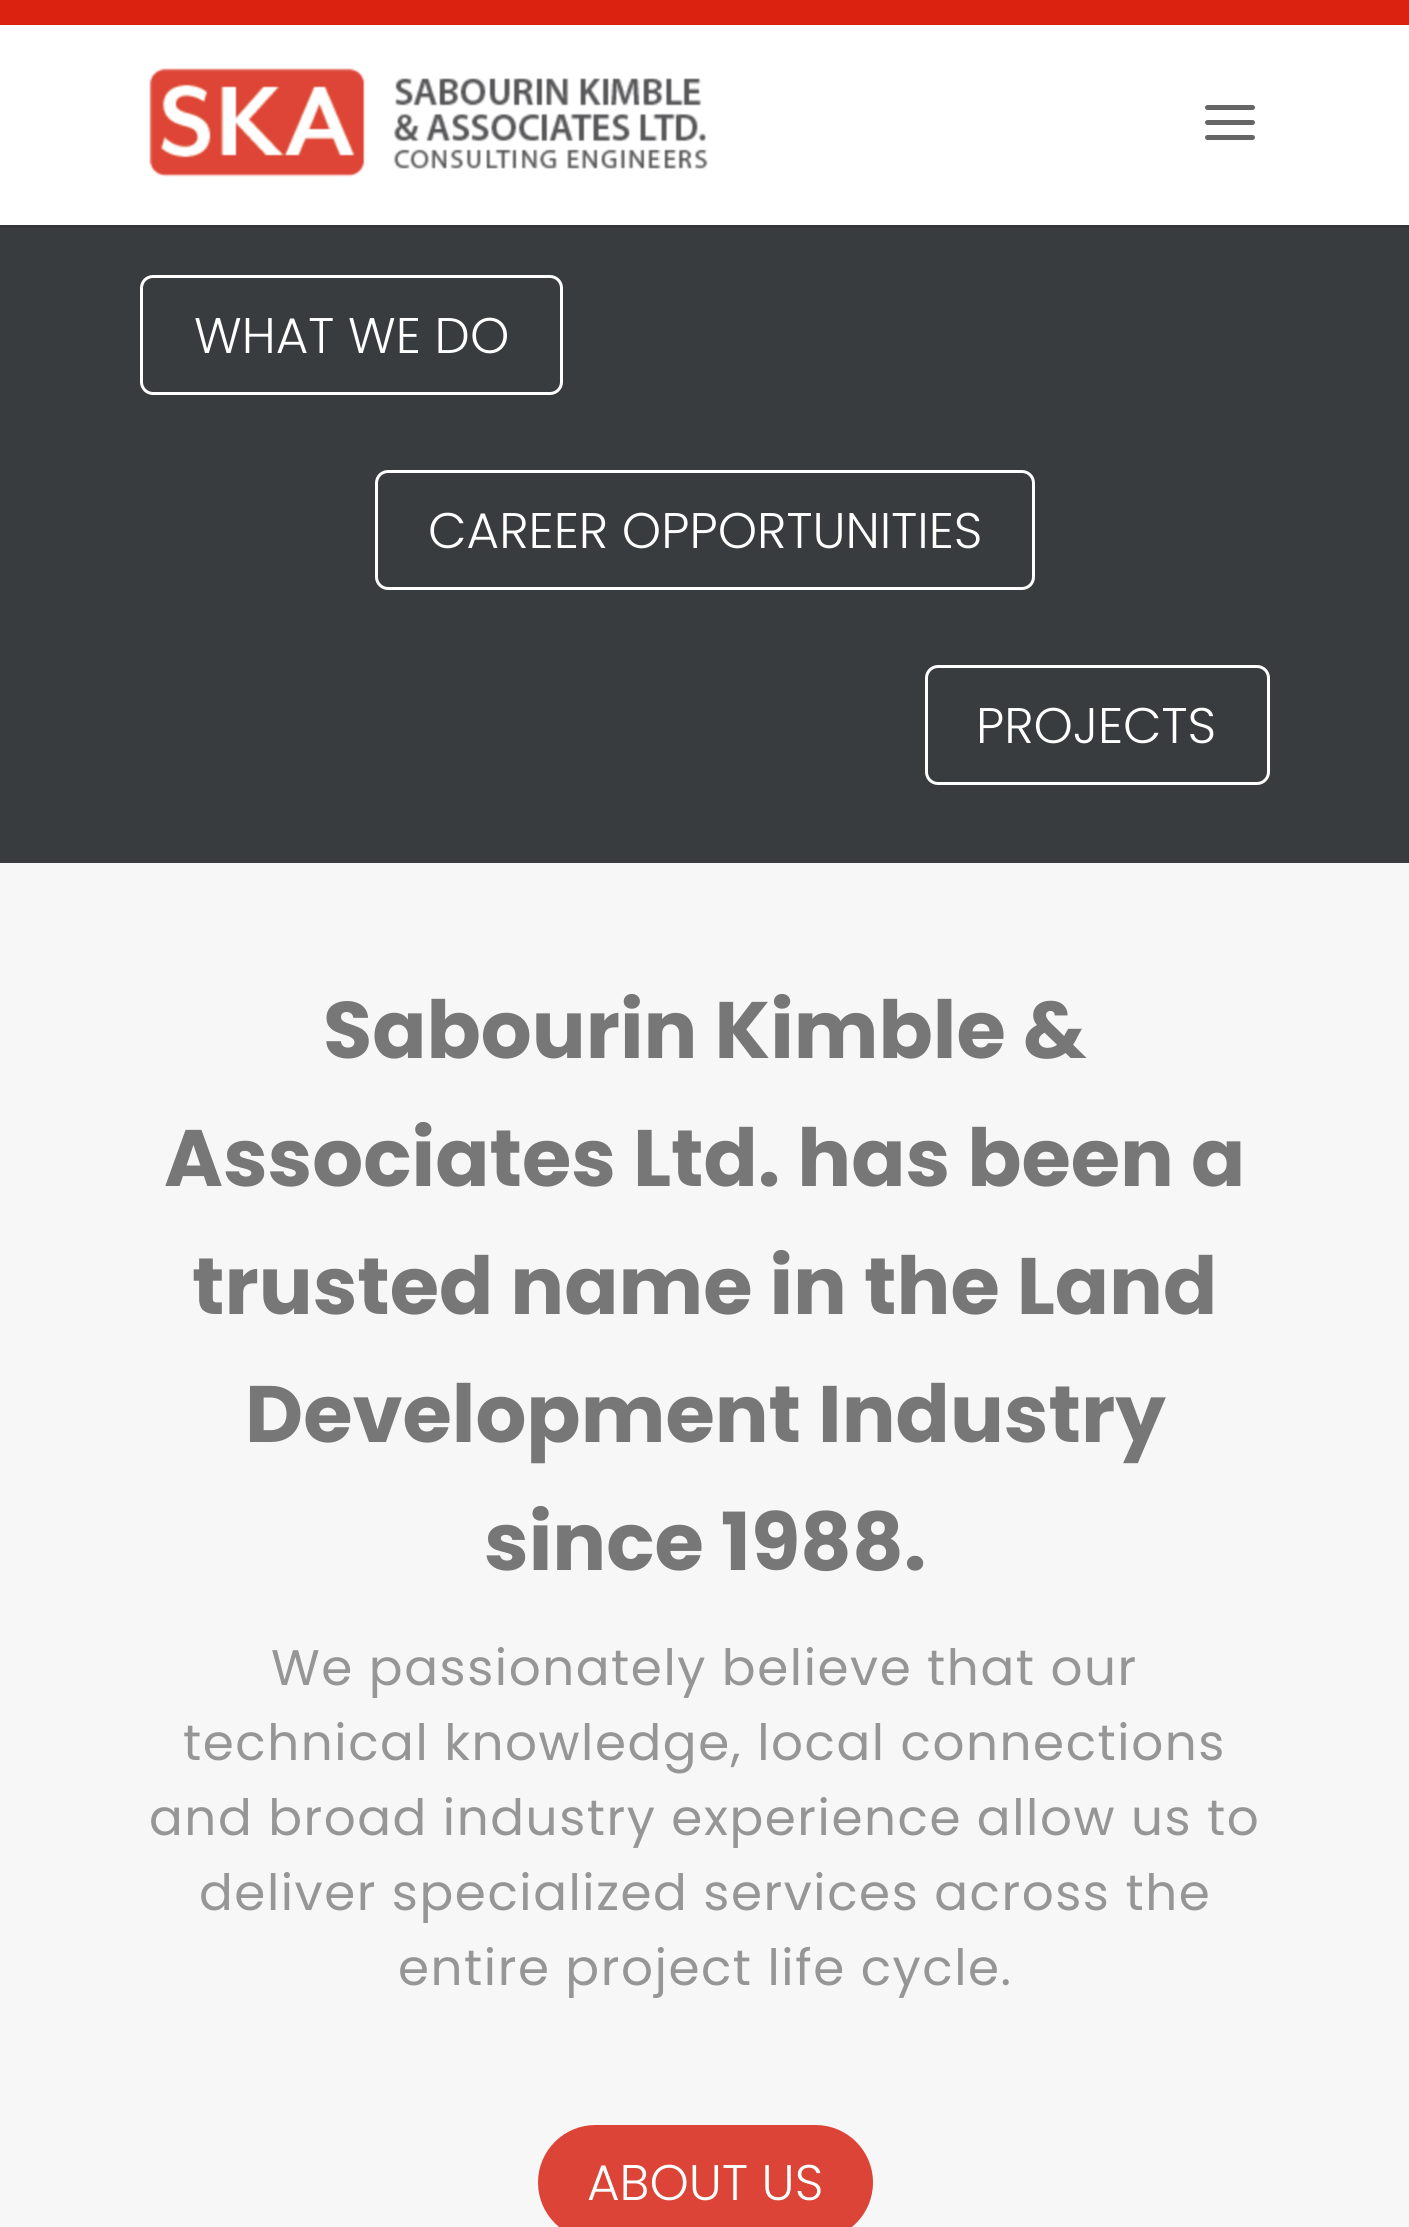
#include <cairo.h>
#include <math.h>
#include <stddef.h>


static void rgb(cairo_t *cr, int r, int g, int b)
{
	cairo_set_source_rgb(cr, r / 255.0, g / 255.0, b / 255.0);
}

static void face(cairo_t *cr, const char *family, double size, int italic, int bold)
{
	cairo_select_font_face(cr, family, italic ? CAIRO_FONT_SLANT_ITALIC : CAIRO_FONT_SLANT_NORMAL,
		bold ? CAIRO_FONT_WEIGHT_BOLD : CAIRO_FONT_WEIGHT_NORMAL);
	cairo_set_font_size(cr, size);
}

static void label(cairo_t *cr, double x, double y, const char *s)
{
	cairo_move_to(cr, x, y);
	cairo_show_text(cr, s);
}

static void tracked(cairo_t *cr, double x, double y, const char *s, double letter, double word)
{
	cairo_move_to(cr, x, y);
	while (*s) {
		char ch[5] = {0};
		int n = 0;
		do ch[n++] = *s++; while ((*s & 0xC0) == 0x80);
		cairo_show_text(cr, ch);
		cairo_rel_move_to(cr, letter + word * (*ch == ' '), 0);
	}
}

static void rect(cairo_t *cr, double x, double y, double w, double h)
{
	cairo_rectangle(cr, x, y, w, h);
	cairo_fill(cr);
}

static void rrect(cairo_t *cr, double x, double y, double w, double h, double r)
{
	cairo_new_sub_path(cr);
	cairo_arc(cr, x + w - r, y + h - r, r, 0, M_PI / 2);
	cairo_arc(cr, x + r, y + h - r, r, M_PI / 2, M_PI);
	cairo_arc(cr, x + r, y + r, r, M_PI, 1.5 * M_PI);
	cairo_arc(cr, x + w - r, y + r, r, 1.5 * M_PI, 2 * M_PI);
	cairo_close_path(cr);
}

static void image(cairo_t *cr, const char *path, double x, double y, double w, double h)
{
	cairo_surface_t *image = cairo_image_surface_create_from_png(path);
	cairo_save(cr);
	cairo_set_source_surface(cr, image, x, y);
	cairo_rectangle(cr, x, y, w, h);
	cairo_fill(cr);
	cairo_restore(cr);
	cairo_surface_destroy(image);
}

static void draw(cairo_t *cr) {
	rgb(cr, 57, 60, 62);
	cairo_paint(cr);
	rgb(cr, 51, 54, 56);
	rect(cr, 0, 225, 1409, 3);
	rgb(cr, 255, 255, 255);
	rect(cr, 0, 25, 1409, 200);
	rgb(cr, 219, 34, 17);
	rect(cr, 0, 0, 1409, 25);
	image(cr, "image0.png", 149, 68, 559, 109);
	image(cr, "image1.png", 1205, 105, 50, 35);
	rrect(cr, 141.5, 276.5, 420, 117, 11.5);
	rgb(cr, 255, 255, 255);
	cairo_set_line_width(cr, 3);
	cairo_stroke(cr);
	face(cr, "Poppins Light", 50, 0, 0);
	label(cr, 194, 353, "WHAT WE DO");
	rrect(cr, 376.5, 471.5, 657, 117, 11.5);
	cairo_stroke(cr);
	label(cr, 428, 548, "CAREER OPPORTUNITIES");
	rrect(cr, 926.5, 666.5, 342, 117, 11.5);
	cairo_stroke(cr);
	label(cr, 976, 743, "PROJECTS");
	rgb(cr, 247, 247, 247);
	rect(cr, 0, 863, 1409, 1364);
	face(cr, "Poppins", 80, 0, 1);
	rgb(cr, 119, 119, 119);
	label(cr, 323, 1058, "Sabourin Kimble &");
	label(cr, 164, 1186, "Associates Ltd. has been a");
	label(cr, 192, 1314, "trusted name in the Land");
	label(cr, 245, 1442, "Development Industry");
	label(cr, 484, 1570, "since 1988.");
	face(cr, "Poppins", 50, 0, 0);
	rgb(cr, 150, 150, 150);
	tracked(cr, 271, 1685, "We passionately believe that our", 1.55, 0);
	tracked(cr, 183, 1760, "technical knowledge, local connections", 1.55, 0);
	tracked(cr, 149, 1835, "and broad industry experience allow us to", 1.55, 0);
	tracked(cr, 199, 1910, "deliver specialized services across the", 1.55, 0);
	tracked(cr, 398, 1985, "entire project life cycle.", 1.55, 0);
	rgb(cr, 220, 68, 55);
	rrect(cr, 538, 2125, 335, 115, 57.5);
	cairo_fill(cr);
	face(cr, "Poppins Light", 50, 0, 0);
	rgb(cr, 255, 255, 255);
	label(cr, 587, 2200, "ABOUT US");
}

int main(void) {
	cairo_surface_t *surface = cairo_image_surface_create(CAIRO_FORMAT_RGB24, 1409, 2227);
	cairo_t *cr = cairo_create(surface);
	cairo_font_options_t *options = cairo_font_options_create();
	cairo_font_options_set_hint_metrics(options, CAIRO_HINT_METRICS_OFF);
	cairo_font_options_set_hint_style(options, CAIRO_HINT_STYLE_NONE);
	cairo_set_font_options(cr, options);
	cairo_set_miter_limit(cr, 4);
	draw(cr);
	cairo_surface_write_to_png(surface, "render.png");
	cairo_font_options_destroy(options);
	cairo_destroy(cr);
	cairo_surface_destroy(surface);
	return 0;
}
